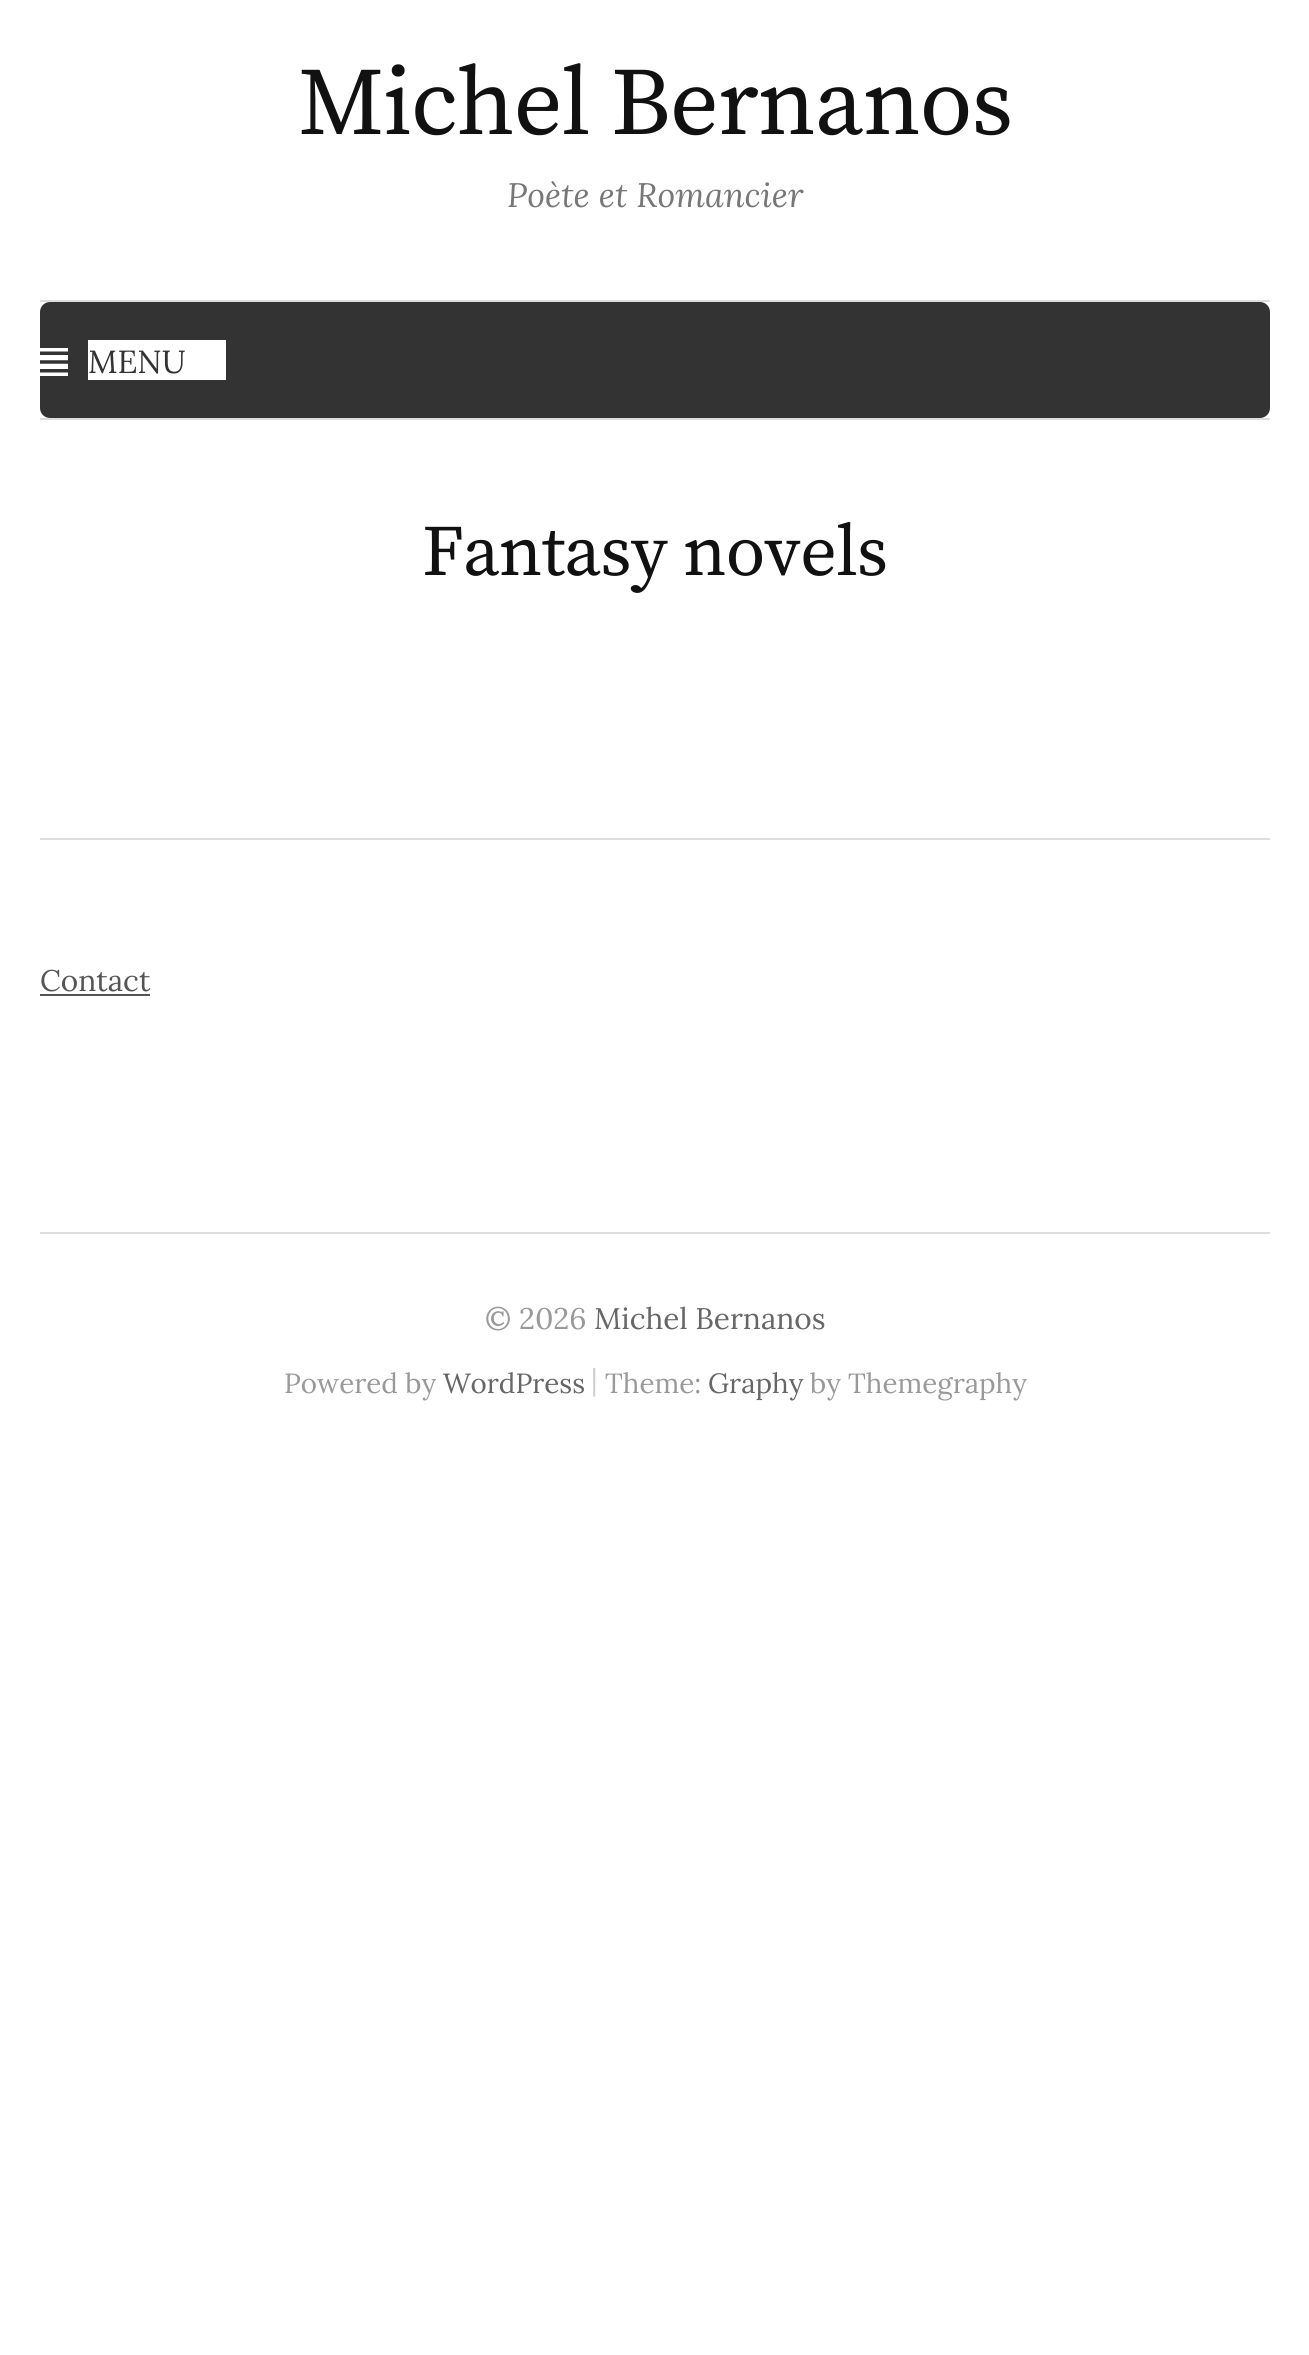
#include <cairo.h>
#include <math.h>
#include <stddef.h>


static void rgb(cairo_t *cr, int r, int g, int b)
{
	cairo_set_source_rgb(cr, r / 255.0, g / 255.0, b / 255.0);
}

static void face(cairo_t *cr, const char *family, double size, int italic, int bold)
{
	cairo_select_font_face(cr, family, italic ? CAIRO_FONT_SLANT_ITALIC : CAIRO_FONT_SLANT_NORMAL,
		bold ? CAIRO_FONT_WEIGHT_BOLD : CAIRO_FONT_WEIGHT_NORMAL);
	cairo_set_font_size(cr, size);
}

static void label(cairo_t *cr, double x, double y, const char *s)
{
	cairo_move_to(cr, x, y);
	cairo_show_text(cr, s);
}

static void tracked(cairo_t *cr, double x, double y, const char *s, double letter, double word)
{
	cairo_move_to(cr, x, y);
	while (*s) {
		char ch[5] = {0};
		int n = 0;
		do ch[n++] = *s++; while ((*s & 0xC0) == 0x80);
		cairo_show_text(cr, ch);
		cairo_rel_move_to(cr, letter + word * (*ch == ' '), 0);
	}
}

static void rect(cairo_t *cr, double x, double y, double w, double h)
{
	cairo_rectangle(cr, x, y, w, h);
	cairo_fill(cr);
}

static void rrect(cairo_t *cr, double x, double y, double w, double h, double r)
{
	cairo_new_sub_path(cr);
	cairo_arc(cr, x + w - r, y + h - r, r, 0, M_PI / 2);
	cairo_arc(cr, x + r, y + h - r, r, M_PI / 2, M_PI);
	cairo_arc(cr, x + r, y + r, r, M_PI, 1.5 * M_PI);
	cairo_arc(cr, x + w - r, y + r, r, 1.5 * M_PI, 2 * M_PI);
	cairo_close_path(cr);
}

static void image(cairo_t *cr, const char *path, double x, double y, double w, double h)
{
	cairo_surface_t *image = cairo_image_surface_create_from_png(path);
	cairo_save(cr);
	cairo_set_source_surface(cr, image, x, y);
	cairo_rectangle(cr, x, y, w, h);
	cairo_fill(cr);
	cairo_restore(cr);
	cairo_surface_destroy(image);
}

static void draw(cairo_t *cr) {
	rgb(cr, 255, 255, 255);
	cairo_paint(cr);
	face(cr, "Source Serif Pro", 96, 0, 0);
	rgb(cr, 17, 17, 17);
	tracked(cr, 298, 134, "Michel Bernanos", -1, 0);
	face(cr, "Lora", 34, 1, 0);
	rgb(cr, 119, 119, 119);
	label(cr, 507, 207, "Poète et Romancier");
	rgb(cr, 221, 221, 221);
	rect(cr, 40, 300, 1230, 2);
	rect(cr, 40, 418, 1230, 2);
	rgb(cr, 51, 51, 51);
	rrect(cr, 40, 302, 1230, 116, 10);
	cairo_fill(cr);
	rgb(cr, 255, 255, 255);
	rect(cr, 40, 348, 28, 28);
	rect(cr, 88, 340, 138, 40);
	image(cr, "image0.png", 40, 351, 28, 22);
	face(cr, "Lora", 32, 0, 0);
	rgb(cr, 51, 51, 51);
	label(cr, 88, 373, "MENU");
	face(cr, "Source Serif Pro", 72, 0, 0);
	rgb(cr, 17, 17, 17);
	tracked(cr, 422, 575, "Fantasy novels", -0.75, 0);
	rgb(cr, 221, 221, 221);
	rect(cr, 40, 838, 1230, 2);
	face(cr, "Lora", 29.75, 0, 0);
	rgb(cr, 85, 85, 85);
	label(cr, 40, 991, "Contact");
	rect(cr, 40, 994, 110, 2);
	rgb(cr, 221, 221, 221);
	rect(cr, 40, 1232, 1230, 2);
	rgb(cr, 153, 153, 153);
	label(cr, 485, 1329, "© 2026");
	rgb(cr, 102, 102, 102);
	label(cr, 594, 1329, "Michel Bernanos");
	face(cr, "Lora", 27.75, 0, 0);
	rgb(cr, 153, 153, 153);
	label(cr, 284, 1393, "Powered by");
	rgb(cr, 102, 102, 102);
	label(cr, 443, 1393, "WordPress");
	rgb(cr, 204, 204, 204);
	label(cr, 591, 1389, "|");
	rgb(cr, 153, 153, 153);
	label(cr, 605, 1393, "Theme:");
	rgb(cr, 102, 102, 102);
	label(cr, 708, 1393, "Graphy");
	rgb(cr, 153, 153, 153);
	label(cr, 810, 1393, "by Themegraphy");
}

int main(void) {
	cairo_surface_t *surface = cairo_image_surface_create(CAIRO_FORMAT_RGB24, 1309, 2355);
	cairo_t *cr = cairo_create(surface);
	cairo_font_options_t *options = cairo_font_options_create();
	cairo_font_options_set_hint_metrics(options, CAIRO_HINT_METRICS_OFF);
	cairo_font_options_set_hint_style(options, CAIRO_HINT_STYLE_NONE);
	cairo_set_font_options(cr, options);
	cairo_set_miter_limit(cr, 4);
	draw(cr);
	cairo_surface_write_to_png(surface, "render.png");
	cairo_font_options_destroy(options);
	cairo_destroy(cr);
	cairo_surface_destroy(surface);
	return 0;
}
